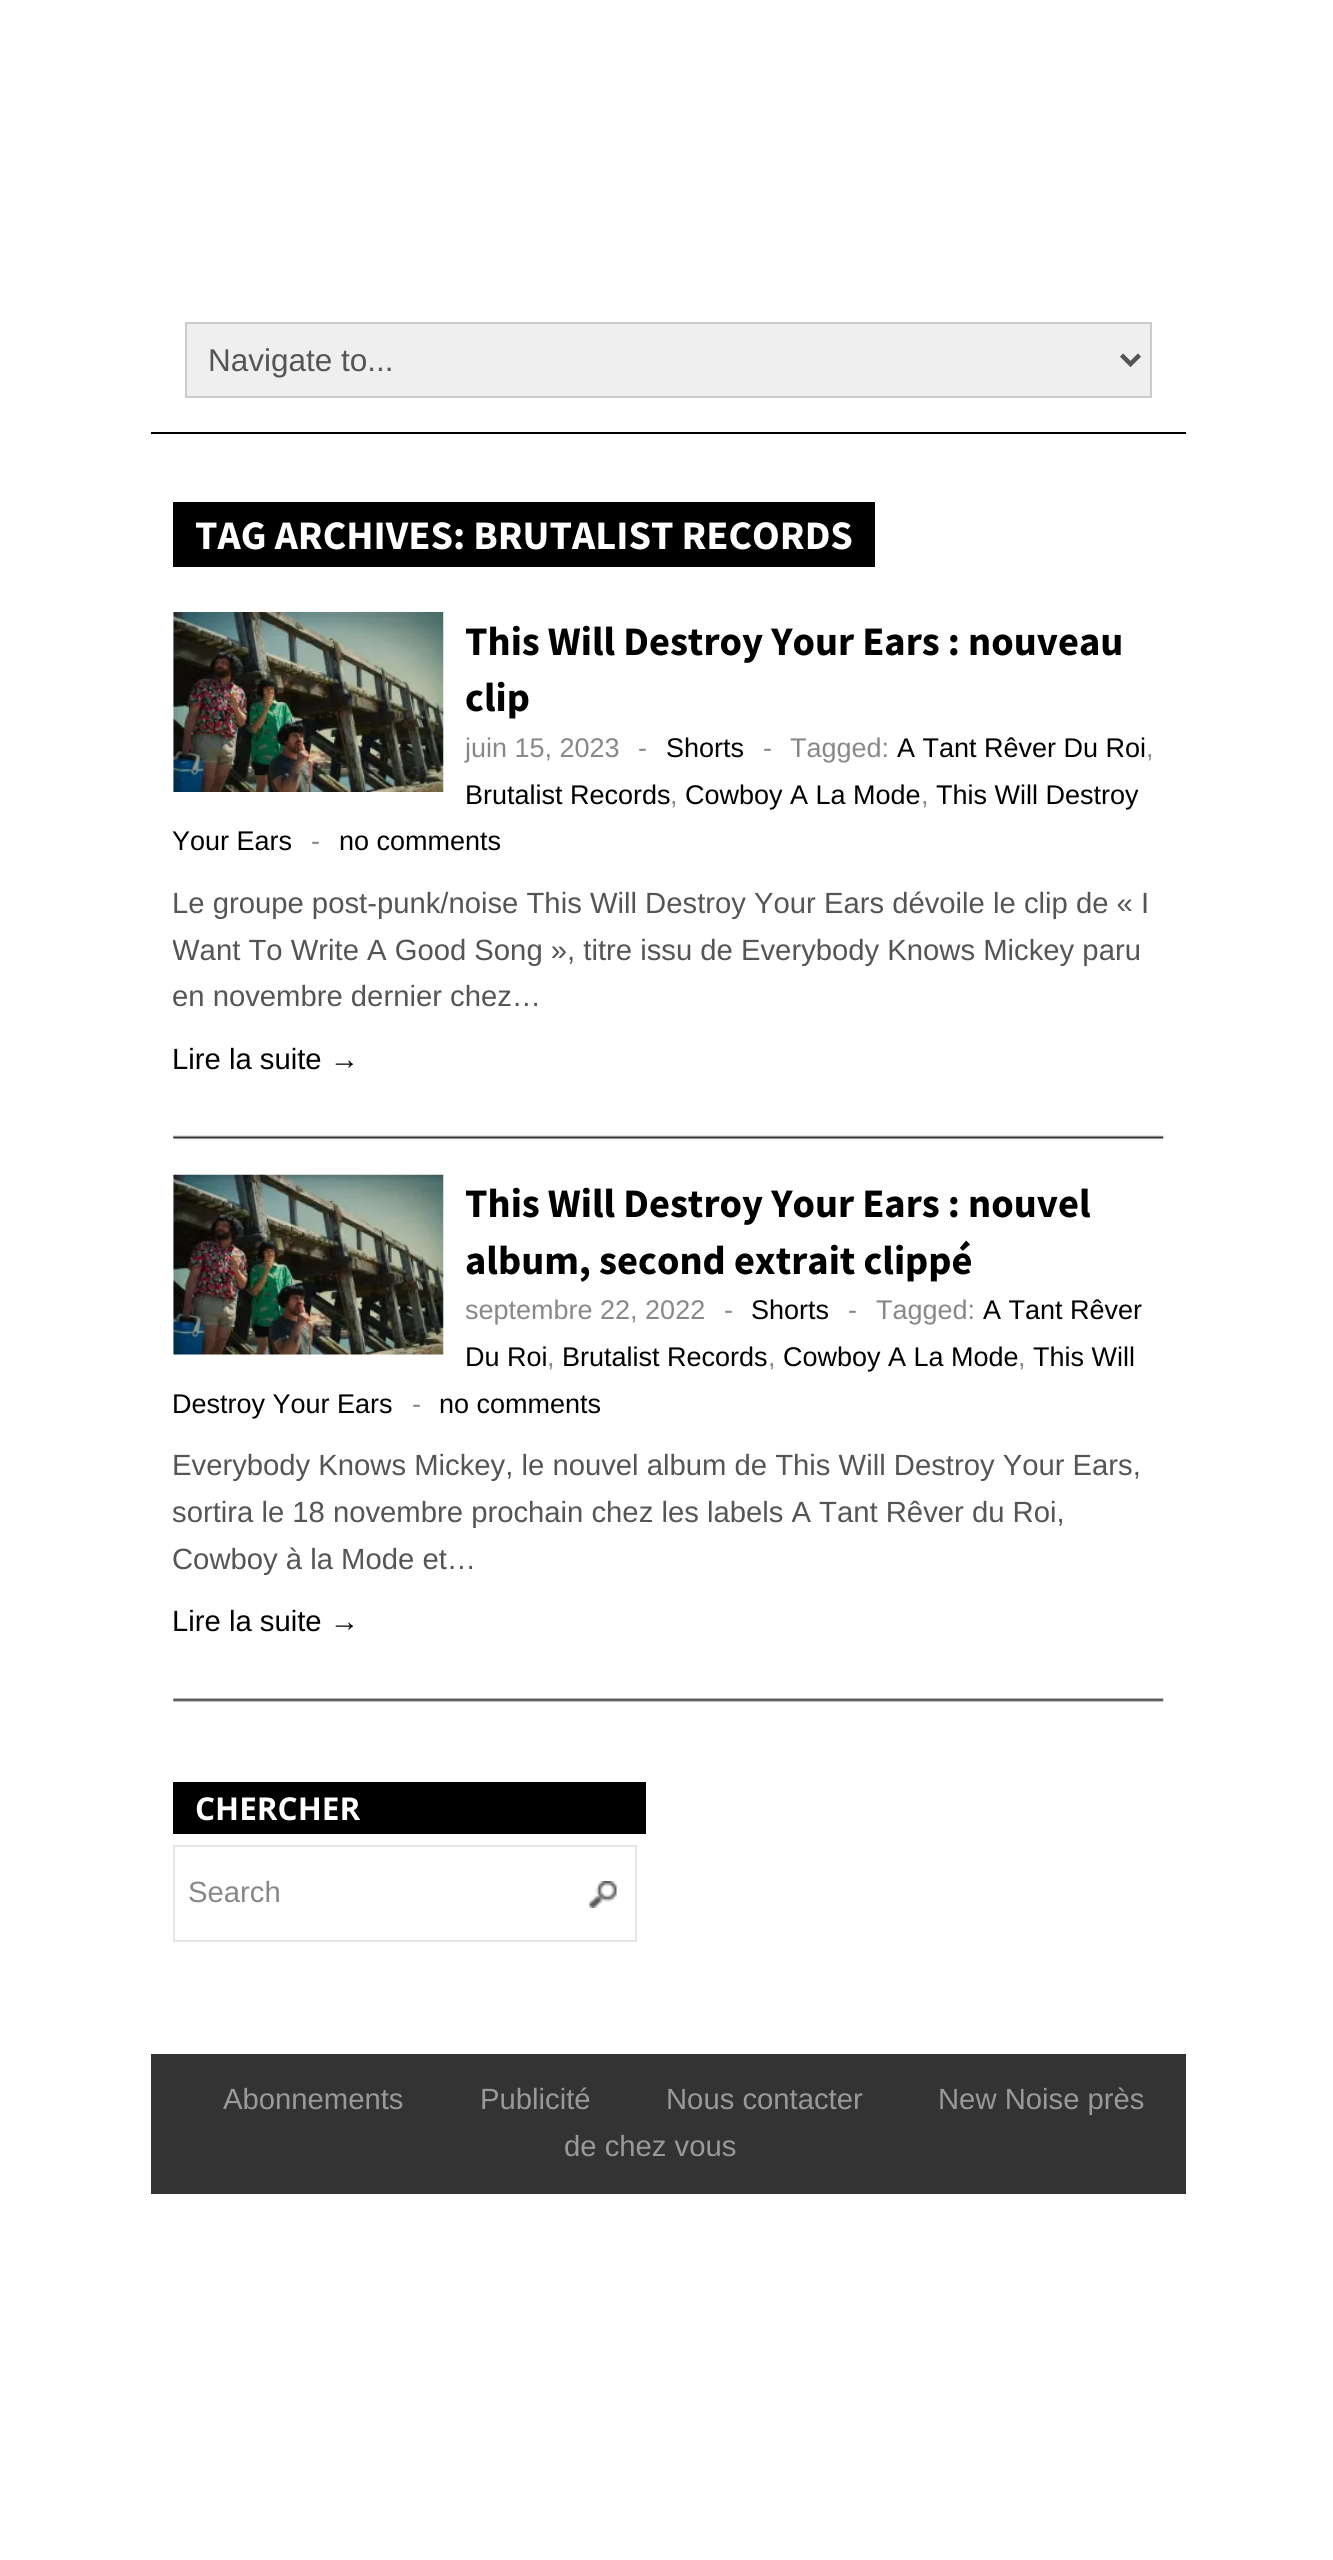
#include <cairo.h>
#include <math.h>
#include <stddef.h>


static void rgb(cairo_t *cr, int r, int g, int b)
{
	cairo_set_source_rgb(cr, r / 255.0, g / 255.0, b / 255.0);
}

static void face(cairo_t *cr, const char *family, double size, int italic, int bold)
{
	cairo_select_font_face(cr, family, italic ? CAIRO_FONT_SLANT_ITALIC : CAIRO_FONT_SLANT_NORMAL,
		bold ? CAIRO_FONT_WEIGHT_BOLD : CAIRO_FONT_WEIGHT_NORMAL);
	cairo_set_font_size(cr, size);
}

static void label(cairo_t *cr, double x, double y, const char *s)
{
	cairo_move_to(cr, x, y);
	cairo_show_text(cr, s);
}

static void rect(cairo_t *cr, double x, double y, double w, double h)
{
	cairo_rectangle(cr, x, y, w, h);
	cairo_fill(cr);
}

static void image(cairo_t *cr, const char *path, double x, double y, double w, double h)
{
	cairo_surface_t *image = cairo_image_surface_create_from_png(path);
	cairo_save(cr);
	cairo_set_source_surface(cr, image, x, y);
	cairo_rectangle(cr, x, y, w, h);
	cairo_fill(cr);
	cairo_restore(cr);
	cairo_surface_destroy(image);
}

static void draw(cairo_t *cr) {
	rgb(cr, 255, 255, 255);
	cairo_paint(cr);
	rgb(cr, 0, 0, 0);
	rect(cr, 151, 432, 1035, 2);
	rgb(cr, 239, 239, 239);
	cairo_rectangle(cr, 186, 323, 965, 74);
	cairo_fill_preserve(cr);
	rgb(cr, 204, 204, 204);
	cairo_stroke(cr);
	cairo_new_path(cr);
	cairo_move_to(cr, 1121.5, 355);
	cairo_line_to(cr, 1130.5, 364);
	cairo_line_to(cr, 1139.5, 355);
	rgb(cr, 85, 85, 85);
	cairo_set_line_width(cr, 4.5);
	cairo_stroke(cr);
	face(cr, "Liberation Sans", 31.5, 0, 0);
	label(cr, 208, 371, "Navigate to...");
	rgb(cr, 0, 0, 0);
	rect(cr, 173, 502, 702, 65);
	face(cr, "Source Sans Pro", 40.5, 0, 1);
	rgb(cr, 255, 255, 255);
	label(cr, 195, 549, "TAG ARCHIVES: BRUTALIST RECORDS");
	image(cr, "image0.png", 173, 1135, 991, 5);
	image(cr, "image1.png", 173, 612, 271, 180);
	rgb(cr, 0, 0, 0);
	label(cr, 465, 655, "This Will Destroy Your Ears : nouveau");
	label(cr, 465, 711, "clip");
	face(cr, "Liberation Sans", 27, 0, 0);
	rgb(cr, 136, 136, 136);
	label(cr, 465, 757, "juin 15, 2023");
	label(cr, 638, 757, "-");
	rgb(cr, 0, 0, 0);
	label(cr, 666, 757, "Shorts");
	rgb(cr, 136, 136, 136);
	label(cr, 763, 757, "-");
	label(cr, 790, 757, "Tagged:");
	rgb(cr, 0, 0, 0);
	label(cr, 897, 757, "A Tant Rêver Du Roi");
	rgb(cr, 136, 136, 136);
	label(cr, 1146, 757, ",");
	rgb(cr, 0, 0, 0);
	label(cr, 465, 804, "Brutalist Records");
	rgb(cr, 136, 136, 136);
	label(cr, 670, 804, ",");
	rgb(cr, 0, 0, 0);
	label(cr, 685, 804, "Cowboy A La Mode");
	rgb(cr, 136, 136, 136);
	label(cr, 921, 804, ",");
	rgb(cr, 0, 0, 0);
	label(cr, 936, 804, "This Will Destroy");
	label(cr, 172, 850, "Your Ears");
	rgb(cr, 136, 136, 136);
	label(cr, 311, 850, "-");
	rgb(cr, 0, 0, 0);
	label(cr, 339, 850, "no comments");
	face(cr, "Liberation Sans", 29.25, 0, 0);
	rgb(cr, 85, 85, 85);
	label(cr, 172, 913, "Le groupe post-punk/noise This Will Destroy Your Ears dévoile le clip de « I");
	cairo_save(cr);
	cairo_rectangle(cr, 173, 612, 990, 529);
	cairo_clip(cr);
	label(cr, 172, 960, "Want To Write A Good Song », titre issu de Everybody Knows Mickey paru");
	cairo_restore(cr);
	label(cr, 172, 1006, "en novembre dernier chez…");
	rgb(cr, 0, 0, 0);
	label(cr, 172, 1069, "Lire la suite →");
	image(cr, "image2.png", 173, 1698, 991, 4);
	image(cr, "image3.png", 173, 1174, 271, 181);
	face(cr, "Source Sans Pro", 40.5, 0, 1);
	label(cr, 465, 1217, "This Will Destroy Your Ears : nouvel");
	label(cr, 465, 1274, "album, second extrait clippé");
	face(cr, "Liberation Sans", 27, 0, 0);
	rgb(cr, 136, 136, 136);
	label(cr, 465, 1319, "septembre 22, 2022");
	label(cr, 724, 1319, "-");
	rgb(cr, 0, 0, 0);
	label(cr, 751, 1319, "Shorts");
	rgb(cr, 136, 136, 136);
	label(cr, 848, 1319, "-");
	label(cr, 876, 1319, "Tagged:");
	rgb(cr, 0, 0, 0);
	label(cr, 983, 1319, "A Tant Rêver");
	label(cr, 465, 1366, "Du Roi");
	rgb(cr, 136, 136, 136);
	label(cr, 547, 1366, ",");
	rgb(cr, 0, 0, 0);
	label(cr, 562, 1366, "Brutalist Records");
	rgb(cr, 136, 136, 136);
	label(cr, 768, 1366, ",");
	rgb(cr, 0, 0, 0);
	label(cr, 783, 1366, "Cowboy A La Mode");
	rgb(cr, 136, 136, 136);
	label(cr, 1018, 1366, ",");
	rgb(cr, 0, 0, 0);
	label(cr, 1033, 1366, "This Will");
	label(cr, 172, 1413, "Destroy Your Ears");
	rgb(cr, 136, 136, 136);
	label(cr, 412, 1413, "-");
	rgb(cr, 0, 0, 0);
	label(cr, 439, 1413, "no comments");
	face(cr, "Liberation Sans", 29.25, 0, 0);
	rgb(cr, 85, 85, 85);
	label(cr, 172, 1475, "Everybody Knows Mickey, le nouvel album de This Will Destroy Your Ears,");
	label(cr, 172, 1522, "sortira le 18 novembre prochain chez les labels A Tant Rêver du Roi,");
	label(cr, 172, 1569, "Cowboy à la Mode et…");
	rgb(cr, 0, 0, 0);
	label(cr, 172, 1631, "Lire la suite →");
	rect(cr, 173, 1782, 473, 52);
	face(cr, "Open Sans", 31.5, 0, 1);
	rgb(cr, 255, 255, 255);
	label(cr, 195, 1820, "CHERCHER");
	image(cr, "image4.png", 589, 1881, 28, 27);
	cairo_rectangle(cr, 174, 1846, 462, 95);
	rgb(cr, 231, 231, 231);
	cairo_set_line_width(cr, 2);
	cairo_stroke(cr);
	face(cr, "Liberation Sans", 29.25, 0, 0);
	rgb(cr, 136, 136, 136);
	label(cr, 188, 1902, "Search");
	rgb(cr, 51, 51, 51);
	rect(cr, 151, 2054, 1035, 140);
	rgb(cr, 153, 153, 153);
	label(cr, 223, 2109, "Abonnements");
	label(cr, 480, 2109, "Publicité");
	label(cr, 666, 2109, "Nous contacter");
	label(cr, 938, 2109, "New Noise près");
	label(cr, 564, 2156, "de chez vous");
}

int main(void) {
	cairo_surface_t *surface = cairo_image_surface_create(CAIRO_FORMAT_RGB24, 1333, 2560);
	cairo_t *cr = cairo_create(surface);
	cairo_font_options_t *options = cairo_font_options_create();
	cairo_font_options_set_hint_metrics(options, CAIRO_HINT_METRICS_OFF);
	cairo_font_options_set_hint_style(options, CAIRO_HINT_STYLE_NONE);
	cairo_set_font_options(cr, options);
	cairo_set_miter_limit(cr, 4);
	draw(cr);
	cairo_surface_write_to_png(surface, "render.png");
	cairo_font_options_destroy(options);
	cairo_destroy(cr);
	cairo_surface_destroy(surface);
	return 0;
}
